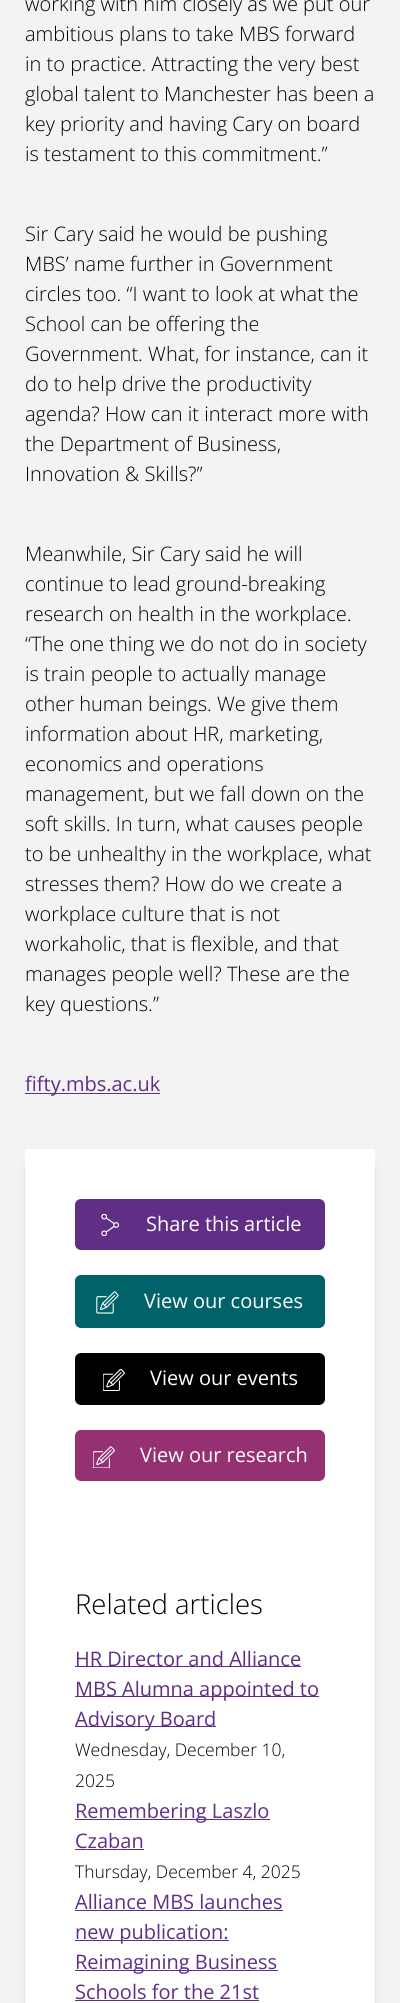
#include <cairo.h>
#include <math.h>
#include <stddef.h>


static void rgb(cairo_t *cr, int r, int g, int b)
{
	cairo_set_source_rgb(cr, r / 255.0, g / 255.0, b / 255.0);
}

static void face(cairo_t *cr, const char *family, double size, int italic, int bold)
{
	cairo_select_font_face(cr, family, italic ? CAIRO_FONT_SLANT_ITALIC : CAIRO_FONT_SLANT_NORMAL,
		bold ? CAIRO_FONT_WEIGHT_BOLD : CAIRO_FONT_WEIGHT_NORMAL);
	cairo_set_font_size(cr, size);
}

static void label(cairo_t *cr, double x, double y, const char *s)
{
	cairo_move_to(cr, x, y);
	cairo_show_text(cr, s);
}

static void rect(cairo_t *cr, double x, double y, double w, double h)
{
	cairo_rectangle(cr, x, y, w, h);
	cairo_fill(cr);
}

static void rrect(cairo_t *cr, double x, double y, double w, double h, double r)
{
	cairo_new_sub_path(cr);
	cairo_arc(cr, x + w - r, y + h - r, r, 0, M_PI / 2);
	cairo_arc(cr, x + r, y + h - r, r, M_PI / 2, M_PI);
	cairo_arc(cr, x + r, y + r, r, M_PI, 1.5 * M_PI);
	cairo_arc(cr, x + w - r, y + r, r, 1.5 * M_PI, 2 * M_PI);
	cairo_close_path(cr);
}

static void soft_shadow(cairo_t *cr, double x, double y, double w, double h, double r, double blur, double alpha)
{
	cairo_push_group_with_content(cr, CAIRO_CONTENT_ALPHA);
	cairo_set_operator(cr, CAIRO_OPERATOR_SOURCE);
	for (int i = 15; i >= -15 && fmin(w, h) + blur * i / 3 > 0; i -= 2) {
		double e = blur * i / 6;
		cairo_set_source_rgba(cr, 0, 0, 0, alpha * erfc((i - 1) / 8.5) / 2);
		rrect(cr, x - e, y - e, w + 2 * e, h + 2 * e, fmax(0, fmin(r + e + blur * .6, fmin(w, h) / 2 + e)));
		cairo_fill(cr);
	}
	cairo_pattern_t *soft = cairo_pop_group(cr);
	cairo_mask(cr, soft);
	cairo_pattern_destroy(soft);
}

static void image(cairo_t *cr, const char *path, double x, double y, double w, double h)
{
	cairo_surface_t *image = cairo_image_surface_create_from_png(path);
	cairo_save(cr);
	cairo_set_source_surface(cr, image, x, y);
	cairo_rectangle(cr, x, y, w, h);
	cairo_fill(cr);
	cairo_restore(cr);
	cairo_surface_destroy(image);
}

static void draw(cairo_t *cr) {
	rgb(cr, 243, 243, 243);
	cairo_paint(cr);
	face(cr, "Open Sans Light", 20, 0, 0);
	rgb(cr, 0, 0, 0);
	label(cr, 25, 11, "working with him closely as we put our");
	label(cr, 25, 41, "ambitious plans to take MBS forward");
	label(cr, 25, 71, "in to practice. Attracting the very best");
	label(cr, 25, 101, "global talent to Manchester has been a");
	label(cr, 25, 131, "key priority and having Cary on board");
	label(cr, 25, 161, "is testament to this commitment.”");
	label(cr, 25, 241, "Sir Cary said he would be pushing");
	label(cr, 25, 271, "MBS’ name further in Government");
	label(cr, 25, 301, "circles too. “I want to look at what the");
	label(cr, 25, 331, "School can be offering the");
	label(cr, 25, 361, "Government. What, for instance, can it");
	label(cr, 25, 391, "do to help drive the productivity");
	label(cr, 25, 421, "agenda? How can it interact more with");
	label(cr, 25, 451, "the Department of Business,");
	label(cr, 25, 481, "Innovation & Skills?”");
	label(cr, 25, 561, "Meanwhile, Sir Cary said he will");
	label(cr, 25, 591, "continue to lead ground-breaking");
	label(cr, 25, 621, "research on health in the workplace.");
	label(cr, 25, 651, "“The one thing we do not do in society");
	label(cr, 25, 681, "is train people to actually manage");
	label(cr, 25, 711, "other human beings. We give them");
	label(cr, 25, 741, "information about HR, marketing,");
	label(cr, 25, 771, "economics and operations");
	label(cr, 25, 801, "management, but we fall down on the");
	label(cr, 25, 831, "soft skills. In turn, what causes people");
	label(cr, 25, 861, "to be unhealthy in the workplace, what");
	label(cr, 25, 891, "stresses them? How do we create a");
	label(cr, 25, 921, "workplace culture that is not");
	label(cr, 25, 951, "workaholic, that is flexible, and that");
	label(cr, 25, 981, "manages people well? These are the");
	label(cr, 25, 1011, "key questions.”");
	rgb(cr, 96, 47, 133);
	rect(cr, 25, 1093, 135, 1);
	face(cr, "Open Sans", 20, 0, 0);
	label(cr, 25, 1091, "fifty.mbs.ac.uk");
	rgb(cr, 56, 59, 60);
	soft_shadow(cr, 31, 1168, 338, 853, 0, 6, 0.38);
	rgb(cr, 255, 255, 255);
	rect(cr, 25, 1149, 350, 854);
	rgb(cr, 96, 47, 133);
	rrect(cr, 75, 1199, 250, 51, 6);
	cairo_fill(cr);
	image(cr, "image0.png", 101, 1214, 18, 22);
	rgb(cr, 255, 255, 255);
	label(cr, 146, 1231, "Share this article");
	rgb(cr, 0, 99, 106);
	rrect(cr, 75, 1275, 250, 53, 6);
	cairo_fill(cr);
	image(cr, "image1.png", 96, 1291, 23, 23);
	rgb(cr, 255, 255, 255);
	label(cr, 144, 1308, "View our courses");
	rgb(cr, 0, 0, 0);
	rrect(cr, 75, 1353, 250, 52, 6);
	cairo_fill(cr);
	image(cr, "image2.png", 103, 1369, 22, 22);
	rgb(cr, 255, 255, 255);
	label(cr, 150, 1385, "View our events");
	rgb(cr, 149, 49, 114);
	rrect(cr, 75, 1430, 250, 51, 6);
	cairo_fill(cr);
	image(cr, "image3.png", 93, 1446, 22, 22);
	rgb(cr, 255, 255, 255);
	label(cr, 140, 1462, "View our research");
	face(cr, "Open Sans Light", 27.5, 0, 0);
	rgb(cr, 0, 0, 0);
	label(cr, 75, 1614, "Related articles");
	rgb(cr, 96, 47, 133);
	rect(cr, 75, 1666, 226, 1);
	face(cr, "Open Sans", 20, 0, 0);
	label(cr, 75, 1666, "HR Director and Alliance");
	rect(cr, 75, 1696, 244, 1);
	label(cr, 75, 1696, "MBS Alumna appointed to");
	rect(cr, 75, 1726, 141, 1);
	label(cr, 75, 1726, "Advisory Board");
	face(cr, "Open Sans Light", 17.5, 0, 0);
	rgb(cr, 0, 0, 0);
	label(cr, 75, 1756, "Wednesday, December 10,");
	label(cr, 75, 1787, "2025");
	rgb(cr, 96, 47, 133);
	rect(cr, 75, 1819, 195, 1);
	face(cr, "Open Sans", 20, 0, 0);
	label(cr, 75, 1818, "Remembering Laszlo");
	label(cr, 75, 1848, "Czaban");
	rect(cr, 75, 1849, 69, 1);
	face(cr, "Open Sans Light", 17.5, 0, 0);
	rgb(cr, 0, 0, 0);
	label(cr, 75, 1878, "Thursday, December 4, 2025");
	face(cr, "Open Sans", 20, 0, 0);
	rgb(cr, 96, 47, 133);
	label(cr, 75, 1909, "Alliance MBS launches");
	rect(cr, 75, 1910, 208, 1);
	rect(cr, 75, 1940, 154, 1);
	label(cr, 75, 1939, "new publication:");
	rect(cr, 75, 1970, 203, 1);
	label(cr, 75, 1969, "Reimagining Business");
	label(cr, 75, 1999, "Schools for the 21st");
	rect(cr, 75, 2000, 184, 1);
}

int main(void) {
	cairo_surface_t *surface = cairo_image_surface_create(CAIRO_FORMAT_RGB24, 400, 2003);
	cairo_t *cr = cairo_create(surface);
	cairo_font_options_t *options = cairo_font_options_create();
	cairo_font_options_set_hint_metrics(options, CAIRO_HINT_METRICS_OFF);
	cairo_font_options_set_hint_style(options, CAIRO_HINT_STYLE_NONE);
	cairo_set_font_options(cr, options);
	cairo_set_miter_limit(cr, 4);
	draw(cr);
	cairo_surface_write_to_png(surface, "render.png");
	cairo_font_options_destroy(options);
	cairo_destroy(cr);
	cairo_surface_destroy(surface);
	return 0;
}
